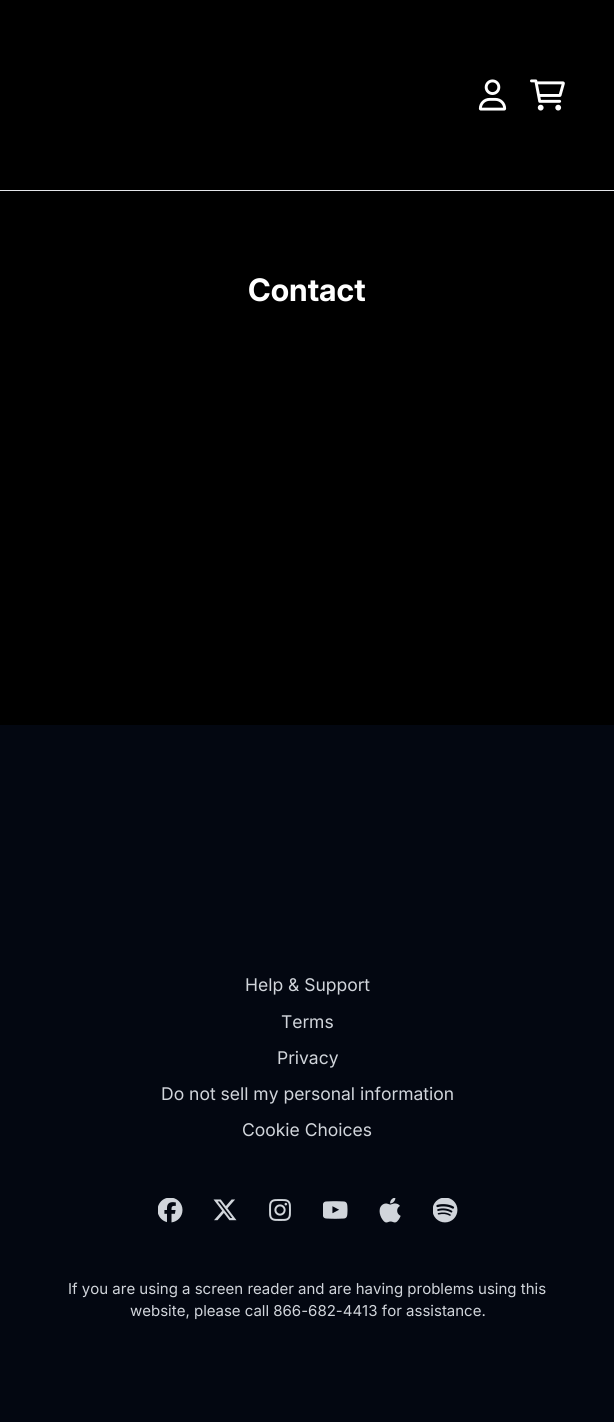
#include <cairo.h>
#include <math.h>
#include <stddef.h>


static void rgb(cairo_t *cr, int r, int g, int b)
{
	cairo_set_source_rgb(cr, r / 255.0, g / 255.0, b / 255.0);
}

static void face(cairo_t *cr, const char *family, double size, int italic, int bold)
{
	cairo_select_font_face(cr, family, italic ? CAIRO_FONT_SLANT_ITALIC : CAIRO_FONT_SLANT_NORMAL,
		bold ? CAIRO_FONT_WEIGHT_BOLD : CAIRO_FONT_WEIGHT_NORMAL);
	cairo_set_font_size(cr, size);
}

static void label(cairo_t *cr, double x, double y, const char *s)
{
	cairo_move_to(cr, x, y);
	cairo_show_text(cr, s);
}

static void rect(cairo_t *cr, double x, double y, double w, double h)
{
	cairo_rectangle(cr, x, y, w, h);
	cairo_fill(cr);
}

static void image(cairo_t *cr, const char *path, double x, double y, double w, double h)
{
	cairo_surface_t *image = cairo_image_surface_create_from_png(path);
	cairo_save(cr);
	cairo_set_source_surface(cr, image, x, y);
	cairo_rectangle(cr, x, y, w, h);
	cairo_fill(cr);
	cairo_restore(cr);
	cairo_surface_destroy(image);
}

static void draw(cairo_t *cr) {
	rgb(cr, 0, 0, 0);
	cairo_paint(cr);
	rgb(cr, 229, 231, 235);
	rect(cr, 0, 190, 614, 1);
	image(cr, "image0.png", 478, 79, 29, 32);
	image(cr, "image1.png", 530, 79, 35, 32);
	face(cr, "Inter", 31, 0, 1);
	rgb(cr, 255, 255, 255);
	label(cr, 248, 301, "Contact");
	rgb(cr, 3, 7, 17);
	rect(cr, 0, 725, 614, 697);
	face(cr, "Inter", 17.5, 0, 0);
	rgb(cr, 209, 213, 219);
	label(cr, 245, 991, "Help & Support");
	label(cr, 281, 1028, "Terms");
	label(cr, 277, 1064, "Privacy");
	label(cr, 161, 1100, "Do not sell my personal information");
	label(cr, 242, 1136, "Cookie Choices");
	image(cr, "image2.png", 158, 1198, 25, 25);
	image(cr, "image3.png", 213, 1199, 24, 22);
	image(cr, "image4.png", 269, 1199, 22, 22);
	image(cr, "image5.png", 323, 1201, 25, 18);
	image(cr, "image6.png", 379, 1198, 22, 25);
	image(cr, "image7.png", 433, 1198, 25, 25);
	face(cr, "Inter", 15, 0, 0);
	label(cr, 68, 1294, "If you are using a screen reader and are having problems using this");
	label(cr, 130, 1316, "website, please call 866-682-4413 for assistance.");
}

int main(void) {
	cairo_surface_t *surface = cairo_image_surface_create(CAIRO_FORMAT_RGB24, 614, 1422);
	cairo_t *cr = cairo_create(surface);
	cairo_font_options_t *options = cairo_font_options_create();
	cairo_font_options_set_hint_metrics(options, CAIRO_HINT_METRICS_OFF);
	cairo_font_options_set_hint_style(options, CAIRO_HINT_STYLE_NONE);
	cairo_set_font_options(cr, options);
	cairo_set_miter_limit(cr, 4);
	draw(cr);
	cairo_surface_write_to_png(surface, "render.png");
	cairo_font_options_destroy(options);
	cairo_destroy(cr);
	cairo_surface_destroy(surface);
	return 0;
}
